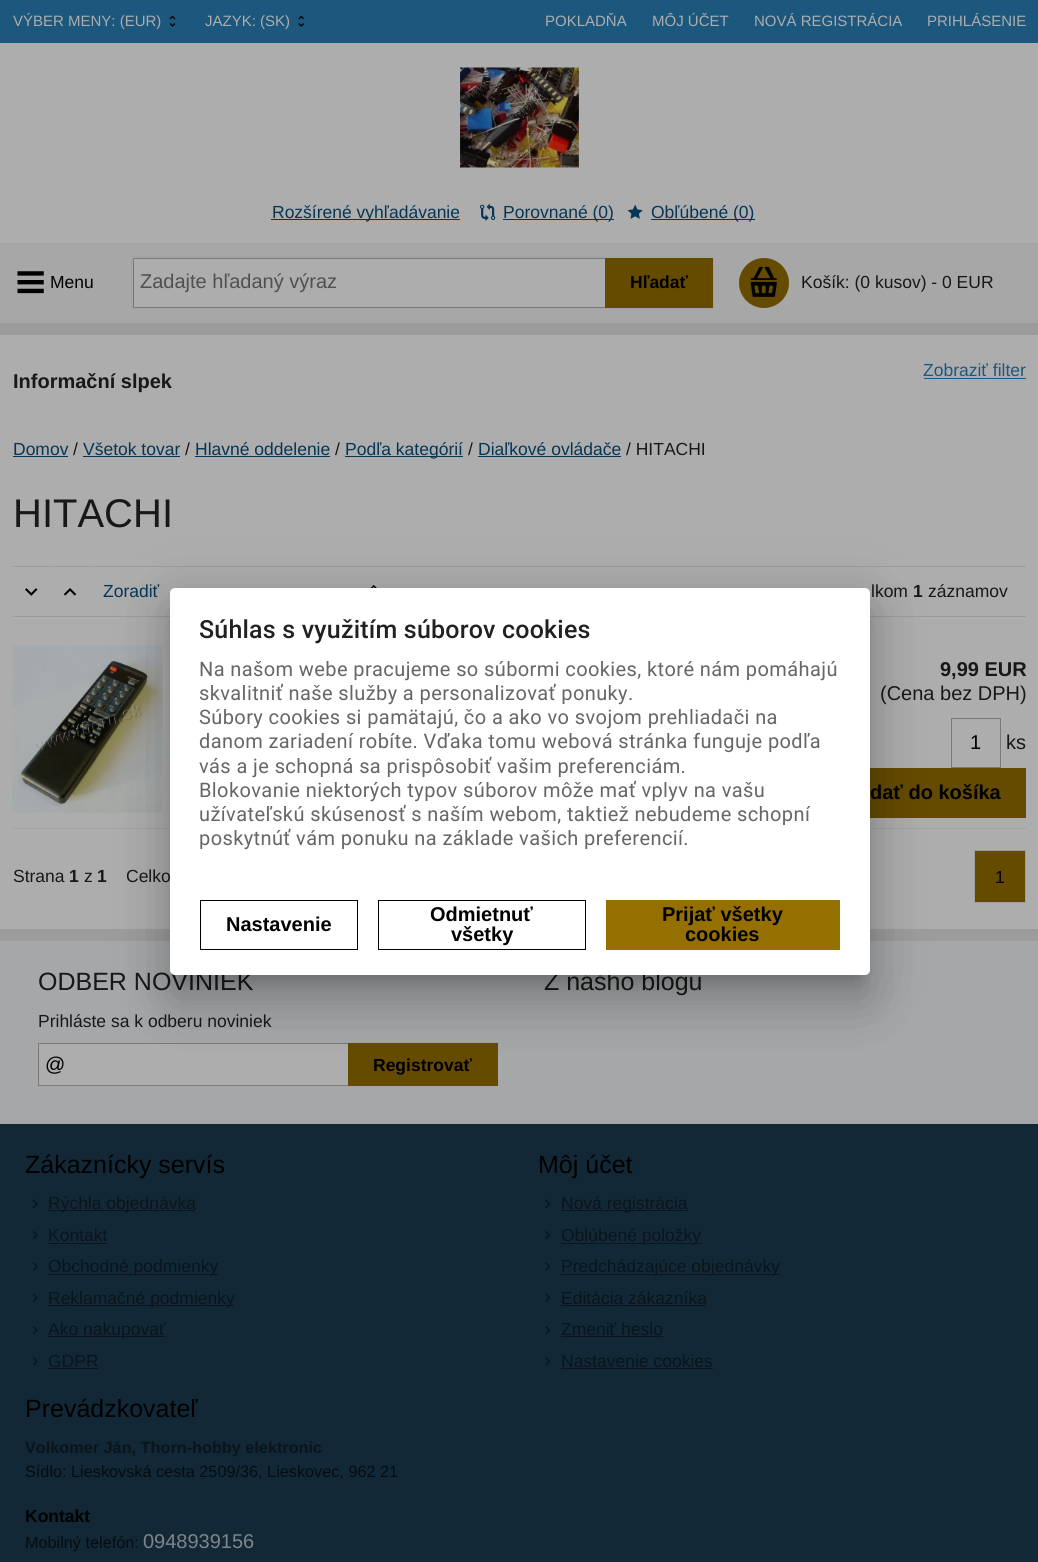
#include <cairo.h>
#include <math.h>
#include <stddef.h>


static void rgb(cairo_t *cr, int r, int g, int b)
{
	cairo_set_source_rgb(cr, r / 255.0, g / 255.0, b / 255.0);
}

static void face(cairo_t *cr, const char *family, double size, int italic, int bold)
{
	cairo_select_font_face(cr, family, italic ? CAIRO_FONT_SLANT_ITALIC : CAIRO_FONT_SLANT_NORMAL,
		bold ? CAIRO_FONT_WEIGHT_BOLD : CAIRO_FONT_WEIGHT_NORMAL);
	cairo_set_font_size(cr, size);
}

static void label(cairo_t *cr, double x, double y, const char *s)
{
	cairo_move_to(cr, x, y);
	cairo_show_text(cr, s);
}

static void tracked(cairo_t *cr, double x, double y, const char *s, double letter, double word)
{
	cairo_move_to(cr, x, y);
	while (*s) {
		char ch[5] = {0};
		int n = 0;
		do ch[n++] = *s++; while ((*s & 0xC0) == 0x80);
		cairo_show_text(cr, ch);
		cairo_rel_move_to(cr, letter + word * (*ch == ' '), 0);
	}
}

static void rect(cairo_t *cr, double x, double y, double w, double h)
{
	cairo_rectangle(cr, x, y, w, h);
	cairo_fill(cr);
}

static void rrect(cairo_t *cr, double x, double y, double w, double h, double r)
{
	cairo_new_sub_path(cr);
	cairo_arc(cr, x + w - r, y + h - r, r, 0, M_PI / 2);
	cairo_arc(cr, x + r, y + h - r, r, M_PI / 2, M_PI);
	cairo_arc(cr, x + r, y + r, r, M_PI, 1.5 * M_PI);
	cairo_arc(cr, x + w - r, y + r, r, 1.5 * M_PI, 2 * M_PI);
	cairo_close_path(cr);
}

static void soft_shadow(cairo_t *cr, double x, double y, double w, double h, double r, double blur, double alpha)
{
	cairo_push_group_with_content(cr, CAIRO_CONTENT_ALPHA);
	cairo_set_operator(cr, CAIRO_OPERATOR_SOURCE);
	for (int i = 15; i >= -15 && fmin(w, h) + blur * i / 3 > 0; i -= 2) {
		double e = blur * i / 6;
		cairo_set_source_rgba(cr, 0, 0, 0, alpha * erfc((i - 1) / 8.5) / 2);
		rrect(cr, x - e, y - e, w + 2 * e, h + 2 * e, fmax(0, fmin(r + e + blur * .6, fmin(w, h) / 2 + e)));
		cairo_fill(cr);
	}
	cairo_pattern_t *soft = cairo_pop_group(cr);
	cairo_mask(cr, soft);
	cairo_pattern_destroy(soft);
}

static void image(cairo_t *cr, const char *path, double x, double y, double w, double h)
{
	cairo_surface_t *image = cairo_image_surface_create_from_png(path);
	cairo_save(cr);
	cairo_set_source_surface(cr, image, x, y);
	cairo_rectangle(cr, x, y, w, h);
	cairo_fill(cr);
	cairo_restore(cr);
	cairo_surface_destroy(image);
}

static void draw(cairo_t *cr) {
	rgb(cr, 173, 173, 173);
	cairo_paint(cr);
	rgb(cr, 28, 87, 126);
	rect(cr, 0, 0, 1038, 43);
	face(cr, "Liberation Sans", 15, 0, 0);
	rgb(cr, 173, 173, 173);
	label(cr, 13, 26, "VÝBER MENY: (EUR)");
	image(cr, "image0.png", 169, 15, 7, 12);
	label(cr, 205, 26, "JAZYK: (SK)");
	image(cr, "image1.png", 298, 15, 6, 12);
	label(cr, 545, 26, "POKLADŇA");
	label(cr, 652, 26, "MÔJ ÚČET");
	label(cr, 754, 26, "NOVÁ REGISTRÁCIA");
	label(cr, 927, 26, "PRIHLÁSENIE");
	image(cr, "image2.png", 460, 67, 119, 101);
	rgb(cr, 5, 54, 86);
	rect(cr, 271, 219, 189, 1);
	face(cr, "Liberation Sans", 17.5, 0, 0);
	label(cr, 272, 218, "Rozšírené vyhľadávanie");
	image(cr, "image3.png", 480, 203, 16, 18);
	rect(cr, 503, 219, 111, 1);
	label(cr, 503, 218, "Porovnané (0)");
	image(cr, "image4.png", 627, 204, 16, 15);
	rect(cr, 651, 219, 104, 1);
	label(cr, 651, 218, "Obľúbené (0)");
	rgb(cr, 167, 167, 167);
	rect(cr, 0, 244, 1038, 79);
	rgb(cr, 163, 163, 163);
	rect(cr, 0, 243, 1038, 1);
	rect(cr, 0, 321, 1038, 1);
	image(cr, "image5.png", 17, 271, 27, 23);
	rgb(cr, 0, 0, 0);
	label(cr, 50, 288, "Menu");
	cairo_rectangle(cr, 131.5, 256.5, 582, 52);
	rgb(cr, 162, 162, 162);
	cairo_set_line_width(cr, 1);
	cairo_stroke(cr);
	rgb(cr, 173, 173, 173);
	rect(cr, 134, 259, 471, 48);
	cairo_rectangle(cr, 133.5, 258.5, 579, 49);
	rgb(cr, 121, 121, 121);
	cairo_stroke(cr);
	face(cr, "Liberation Sans", 20, 0, 0);
	rgb(cr, 80, 80, 80);
	label(cr, 140, 288, "Zadajte hľadaný výraz");
	rgb(cr, 101, 75, 0);
	rect(cr, 605, 258, 108, 50);
	face(cr, "Liberation Sans", 17.5, 0, 1);
	rgb(cr, 0, 0, 0);
	label(cr, 630, 288, "Hľadať");
	rgb(cr, 101, 75, 0);
	cairo_new_path(cr);
	cairo_arc(cr, 764, 283, 25, 0, 2 * M_PI);
	cairo_fill(cr);
	image(cr, "image6.png", 750, 266, 27, 31);
	face(cr, "Liberation Sans", 17.5, 0, 0);
	rgb(cr, 24, 24, 24);
	label(cr, 801, 288, "Košík: (0 kusov) - 0 EUR");
	rgb(cr, 156, 156, 156);
	rect(cr, 0, 323, 1038, 12);
	rect(cr, 0, 929, 1038, 12);
	rgb(cr, 28, 87, 126);
	label(cr, 923, 376, "Zobraziť filter");
	rect(cr, 924, 378, 102, 1);
	face(cr, "Liberation Sans", 20, 0, 1);
	rgb(cr, 24, 24, 24);
	label(cr, 13, 388, "Informační slpek");
	face(cr, "Liberation Sans", 17.5, 0, 0);
	rgb(cr, 5, 54, 86);
	label(cr, 13, 455, "Domov");
	rect(cr, 13, 456, 55, 1);
	rgb(cr, 24, 24, 24);
	label(cr, 73, 455, "/");
	rgb(cr, 5, 54, 86);
	label(cr, 83, 455, "Všetok tovar");
	rect(cr, 83, 456, 97, 1);
	rgb(cr, 24, 24, 24);
	label(cr, 185, 455, "/");
	rgb(cr, 5, 54, 86);
	label(cr, 195, 455, "Hlavné oddelenie");
	rect(cr, 195, 456, 135, 1);
	rgb(cr, 24, 24, 24);
	label(cr, 335, 455, "/");
	rgb(cr, 5, 54, 86);
	rect(cr, 345, 456, 118, 1);
	label(cr, 345, 455, "Podľa kategórií");
	rgb(cr, 24, 24, 24);
	label(cr, 468, 455, "/");
	rgb(cr, 5, 54, 86);
	label(cr, 478, 455, "Diaľkové ovládače");
	rect(cr, 478, 456, 143, 1);
	rgb(cr, 24, 24, 24);
	label(cr, 626, 455, "/ HITACHI");
	face(cr, "Liberation Sans", 40, 0, 0);
	label(cr, 13, 527, "HITACHI");
	rgb(cr, 156, 156, 156);
	rect(cr, 13, 566, 1013, 1);
	rgb(cr, 173, 173, 173);
	rect(cr, 50, 566, 1, 1);
	image(cr, "image7.png", 25, 588, 13, 8);
	rect(cr, 89, 566, 1, 1);
	image(cr, "image8.png", 63, 588, 14, 8);
	face(cr, "Liberation Sans", 17.5, 0, 0);
	rgb(cr, 5, 54, 86);
	label(cr, 103, 597, "Zoradiť");
	image(cr, "image9.png", 370, 585, 7, 3);
	rgb(cr, 156, 156, 156);
	rect(cr, 13, 616, 1013, 1);
	rgb(cr, 24, 24, 24);
	label(cr, 871, 597, "lkom");
	face(cr, "Liberation Sans", 17.5, 0, 1);
	label(cr, 913, 597, "1");
	face(cr, "Liberation Sans", 17.5, 0, 0);
	label(cr, 928, 597, "záznamov");
	rgb(cr, 163, 163, 163);
	rect(cr, 13, 828, 1013, 1);
	image(cr, "image10.png", 12, 645, 151, 168);
	face(cr, "Liberation Sans", 20, 0, 1);
	rgb(cr, 24, 24, 24);
	label(cr, 940, 676, "9,99 EUR");
	face(cr, "Liberation Sans", 20, 0, 0);
	label(cr, 880, 700, "(Cena bez DPH)");
	cairo_rectangle(cr, 951.5, 718.5, 49, 49);
	rgb(cr, 121, 121, 121);
	cairo_stroke(cr);
	rgb(cr, 0, 0, 0);
	label(cr, 970, 749, "1");
	rgb(cr, 24, 24, 24);
	label(cr, 1006, 749, "ks");
	rgb(cr, 101, 75, 0);
	rect(cr, 870, 768, 156, 50);
	face(cr, "Liberation Sans", 20, 0, 1);
	rgb(cr, 0, 0, 0);
	label(cr, 870, 799, "dať do košíka");
	face(cr, "Liberation Sans", 17.5, 0, 0);
	rgb(cr, 24, 24, 24);
	label(cr, 13, 882, "Strana");
	face(cr, "Liberation Sans", 17.5, 0, 1);
	label(cr, 69, 882, "1");
	face(cr, "Liberation Sans", 17.5, 0, 0);
	label(cr, 84, 882, "z");
	face(cr, "Liberation Sans", 17.5, 0, 1);
	label(cr, 97, 882, "1");
	face(cr, "Liberation Sans", 17.5, 0, 0);
	label(cr, 126, 882, "Celko");
	rgb(cr, 101, 75, 0);
	cairo_rectangle(cr, 974.5, 850.5, 51, 52);
	cairo_fill_preserve(cr);
	rgb(cr, 158, 158, 158);
	cairo_stroke(cr);
	rgb(cr, 0, 0, 0);
	label(cr, 995, 883, "1");
	rgb(cr, 165, 167, 169);
	rect(cr, 0, 941, 1038, 183);
	face(cr, "Liberation Sans", 25, 0, 0);
	rgb(cr, 24, 24, 24);
	label(cr, 38, 990, "ODBER NOVINIEK");
	face(cr, "Liberation Sans", 17.5, 0, 0);
	label(cr, 38, 1027, "Prihláste sa k odberu noviniek");
	rgb(cr, 173, 173, 173);
	rect(cr, 39, 1044, 309, 41);
	cairo_rectangle(cr, 38.5, 1043.5, 456, 42);
	rgb(cr, 121, 121, 121);
	cairo_stroke(cr);
	face(cr, "Liberation Sans", 20, 0, 0);
	rgb(cr, 0, 0, 0);
	label(cr, 45, 1071, "@");
	rgb(cr, 101, 75, 0);
	rect(cr, 348, 1043, 150, 43);
	face(cr, "Liberation Sans", 17.5, 0, 1);
	rgb(cr, 0, 0, 0);
	label(cr, 373, 1071, "Registrovať");
	face(cr, "Liberation Sans", 25, 0, 0);
	rgb(cr, 24, 24, 24);
	label(cr, 544, 990, "Z nášho blogu");
	rgb(cr, 18, 40, 55);
	rect(cr, 0, 1124, 1038, 438);
	rgb(cr, 0, 0, 0);
	label(cr, 25, 1173, "Zákaznícky servís");
	image(cr, "image11.png", 32, 1199, 6, 9);
	rgb(cr, 9, 20, 28);
	rect(cr, 48, 1210, 147, 1);
	face(cr, "Liberation Sans", 17.5, 0, 0);
	label(cr, 48, 1209, "Rýchla objednávka");
	image(cr, "image12.png", 32, 1231, 6, 9);
	label(cr, 48, 1241, "Kontakt");
	rect(cr, 48, 1243, 58, 1);
	image(cr, "image13.png", 32, 1262, 6, 9);
	rect(cr, 48, 1274, 170, 1);
	label(cr, 48, 1272, "Obchodné podmienky");
	image(cr, "image14.png", 32, 1293, 6, 9);
	rect(cr, 48, 1305, 186, 1);
	label(cr, 48, 1304, "Reklamačné podmienky");
	image(cr, "image12.png", 32, 1326, 6, 9);
	rect(cr, 48, 1336, 117, 1);
	label(cr, 48, 1335, "Ako nakupovať");
	image(cr, "image13.png", 32, 1357, 6, 9);
	label(cr, 48, 1367, "GDPR");
	rect(cr, 48, 1368, 50, 1);
	face(cr, "Liberation Sans", 25, 0, 0);
	rgb(cr, 0, 0, 0);
	label(cr, 538, 1173, "Môj účet");
	image(cr, "image15.png", 545, 1199, 6, 9);
	rgb(cr, 9, 20, 28);
	rect(cr, 561, 1210, 127, 1);
	face(cr, "Liberation Sans", 17.5, 0, 0);
	label(cr, 561, 1209, "Nová registrácia");
	image(cr, "image16.png", 545, 1231, 6, 9);
	rect(cr, 561, 1243, 140, 1);
	label(cr, 561, 1241, "Oblúbené položky");
	image(cr, "image17.png", 545, 1262, 6, 9);
	rect(cr, 561, 1274, 219, 1);
	label(cr, 561, 1272, "Predchádzajúce objednávky");
	image(cr, "image18.png", 545, 1293, 6, 9);
	label(cr, 561, 1304, "Editácia zákazníka");
	rect(cr, 561, 1305, 145, 1);
	image(cr, "image16.png", 545, 1326, 6, 9);
	label(cr, 561, 1335, "Zmeniť heslo");
	rect(cr, 561, 1336, 102, 1);
	image(cr, "image17.png", 545, 1357, 6, 9);
	label(cr, 561, 1367, "Nastavenie cookies");
	rect(cr, 561, 1368, 152, 1);
	face(cr, "Liberation Sans", 25, 0, 0);
	rgb(cr, 0, 0, 0);
	label(cr, 25, 1417, "Prevádzkovateľ");
	face(cr, "Liberation Sans", 16.25, 0, 1);
	rgb(cr, 9, 20, 28);
	label(cr, 25, 1453, "Volkomer Ján, Thorn-hobby elektronic");
	face(cr, "Liberation Sans", 16.25, 0, 0);
	rgb(cr, 5, 12, 16);
	label(cr, 25, 1477, "Sídlo: Lieskovská cesta 2509/36, Lieskovec, 962 21");
	face(cr, "Liberation Sans", 17.5, 0, 1);
	rgb(cr, 0, 0, 0);
	label(cr, 25, 1522, "Kontakt");
	face(cr, "Liberation Sans", 16.25, 0, 0);
	rgb(cr, 5, 12, 16);
	label(cr, 25, 1548, "Mobilný telefón:");
	face(cr, "Liberation Sans", 20, 0, 0);
	rgb(cr, 126, 133, 138);
	label(cr, 143, 1548, "0948939156");
	rgb(cr, 0, 0, 0);
	soft_shadow(cr, 160, 589, 720, 407, 15, 29, 0.12);
	soft_shadow(cr, 166, 614, 708, 395, 9, 24, 0.14);
	soft_shadow(cr, 179, 610, 682, 370, 0, 9.5, 0.2);
	rgb(cr, 255, 255, 255);
	rrect(cr, 170, 588, 700, 387, 5);
	cairo_fill(cr);
	face(cr, "Roboto Medium", 25, 0, 0);
	rgb(cr, 33, 33, 33);
	tracked(cr, 199, 638, "Súhlas s využitím súborov cookies", 0.2, 0);
	face(cr, "Roboto", 20, 0, 0);
	rgb(cr, 102, 102, 102);
	tracked(cr, 199, 676, "Na našom webe pracujeme so súbormi cookies, ktoré nám pomáhajú", 0.4, 0);
	tracked(cr, 199, 700, "skvalitniť naše služby a personalizovať ponuky.", 0.4, 0);
	tracked(cr, 199, 724, "Súbory cookies si pamätajú, čo a ako vo svojom prehliadači na", 0.4, 0);
	tracked(cr, 199, 748, "danom zariadení robíte. Vďaka tomu webová stránka funguje podľa", 0.4, 0);
	tracked(cr, 199, 773, "vás a je schopná sa prispôsobiť vašim preferenciám.", 0.4, 0);
	tracked(cr, 199, 797, "Blokovanie niektorých typov súborov môže mať vplyv na vašu", 0.4, 0);
	tracked(cr, 199, 821, "užívateľskú skúsenosť s naším webom, taktiež nebudeme schopní", 0.4, 0);
	tracked(cr, 199, 845, "poskytnúť vám ponuku na základe vašich preferencií.", 0.4, 0);
	cairo_rectangle(cr, 200.5, 900.5, 157, 49);
	rgb(cr, 0, 0, 0);
	cairo_stroke(cr);
	face(cr, "Liberation Sans", 20, 0, 1);
	label(cr, 226, 931, "Nastavenie");
	cairo_rectangle(cr, 378.5, 900.5, 207, 49);
	cairo_stroke(cr);
	label(cr, 430, 921, "Odmietnuť");
	label(cr, 451, 941, "všetky");
	rgb(cr, 149, 111, 0);
	rect(cr, 606, 900, 234, 50);
	rgb(cr, 0, 0, 0);
	label(cr, 662, 921, "Prijať všetky");
	label(cr, 685, 941, "cookies");
}

int main(void) {
	cairo_surface_t *surface = cairo_image_surface_create(CAIRO_FORMAT_RGB24, 1038, 1562);
	cairo_t *cr = cairo_create(surface);
	cairo_font_options_t *options = cairo_font_options_create();
	cairo_font_options_set_hint_metrics(options, CAIRO_HINT_METRICS_OFF);
	cairo_font_options_set_hint_style(options, CAIRO_HINT_STYLE_NONE);
	cairo_set_font_options(cr, options);
	cairo_set_miter_limit(cr, 4);
	draw(cr);
	cairo_surface_write_to_png(surface, "render.png");
	cairo_font_options_destroy(options);
	cairo_destroy(cr);
	cairo_surface_destroy(surface);
	return 0;
}
